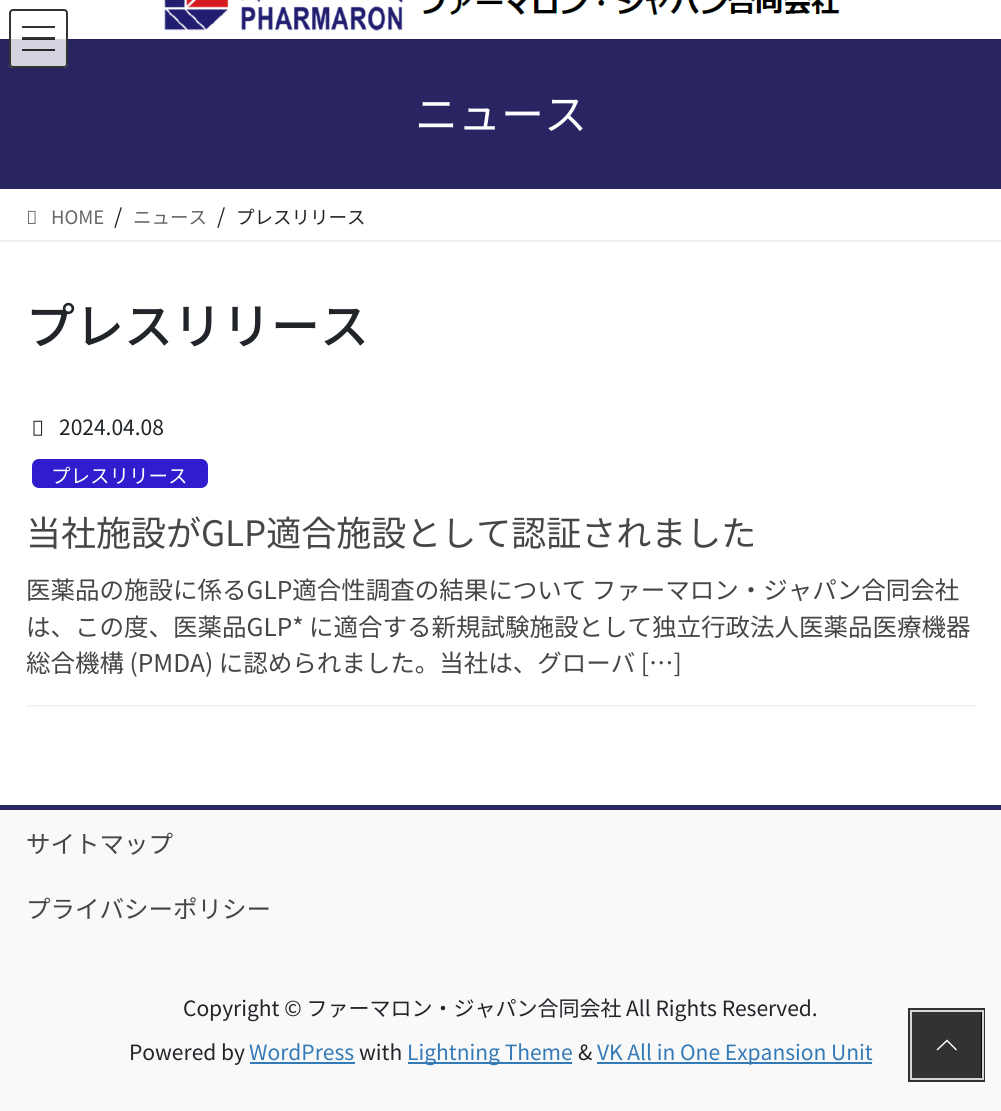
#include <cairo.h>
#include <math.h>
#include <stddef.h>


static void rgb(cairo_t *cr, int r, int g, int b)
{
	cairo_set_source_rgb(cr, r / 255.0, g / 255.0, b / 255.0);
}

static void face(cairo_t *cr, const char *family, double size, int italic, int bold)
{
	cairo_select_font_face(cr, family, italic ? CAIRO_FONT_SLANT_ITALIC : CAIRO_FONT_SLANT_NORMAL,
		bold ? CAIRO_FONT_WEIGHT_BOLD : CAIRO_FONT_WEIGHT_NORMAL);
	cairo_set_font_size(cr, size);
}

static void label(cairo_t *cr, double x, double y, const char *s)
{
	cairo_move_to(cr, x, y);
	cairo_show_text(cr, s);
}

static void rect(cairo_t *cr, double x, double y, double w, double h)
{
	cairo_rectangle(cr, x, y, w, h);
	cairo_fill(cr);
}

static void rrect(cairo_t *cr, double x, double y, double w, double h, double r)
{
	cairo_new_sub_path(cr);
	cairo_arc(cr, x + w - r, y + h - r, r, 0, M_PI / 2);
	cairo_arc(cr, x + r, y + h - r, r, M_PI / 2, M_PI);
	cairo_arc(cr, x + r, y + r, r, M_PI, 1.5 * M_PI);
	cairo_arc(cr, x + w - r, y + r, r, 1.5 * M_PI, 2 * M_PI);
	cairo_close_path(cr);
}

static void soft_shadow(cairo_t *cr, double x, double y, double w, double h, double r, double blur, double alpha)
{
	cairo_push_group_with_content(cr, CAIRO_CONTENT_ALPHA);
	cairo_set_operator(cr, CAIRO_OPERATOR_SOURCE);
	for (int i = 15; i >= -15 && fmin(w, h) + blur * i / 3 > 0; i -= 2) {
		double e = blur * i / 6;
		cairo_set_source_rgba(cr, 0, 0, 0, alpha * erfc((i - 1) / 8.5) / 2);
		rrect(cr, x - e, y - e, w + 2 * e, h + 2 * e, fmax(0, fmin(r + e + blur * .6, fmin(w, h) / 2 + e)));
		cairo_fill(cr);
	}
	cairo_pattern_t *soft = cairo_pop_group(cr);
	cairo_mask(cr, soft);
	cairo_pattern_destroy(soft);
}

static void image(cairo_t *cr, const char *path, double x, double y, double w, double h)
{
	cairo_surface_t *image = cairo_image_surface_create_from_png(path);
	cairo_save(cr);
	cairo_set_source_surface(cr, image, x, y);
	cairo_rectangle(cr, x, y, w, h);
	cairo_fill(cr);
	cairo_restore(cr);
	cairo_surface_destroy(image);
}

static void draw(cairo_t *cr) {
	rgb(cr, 255, 255, 255);
	cairo_paint(cr);
	rgb(cr, 40, 37, 98);
	rect(cr, 0, 39, 1001, 150);
	rgb(cr, 0, 0, 0);
	soft_shadow(cr, 0, -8, 1001, 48, 0, 2.5, 0.1);
	rgb(cr, 255, 255, 255);
	rect(cr, 0, 0, 1001, 39);
	image(cr, "image0.png", 164, 0, 676, 31);
	cairo_set_source_rgba(cr, 1, 1, 1, 0.8);
	rrect(cr, 9, 9, 59, 59, 4);
	cairo_fill(cr);
	rgb(cr, 51, 51, 51);
	rect(cr, 22, 26, 33, 2);
	cairo_set_source_rgba(cr, 0, 0, 0, 0.8);
	rect(cr, 22, 37, 33, 3);
	rgb(cr, 42, 42, 45);
	rect(cr, 22, 49, 33, 2);
	rrect(cr, 10, 10, 57, 57, 3);
	rgb(cr, 51, 51, 51);
	cairo_stroke(cr);
	face(cr, "Noto Sans JP", 43, 0, 0);
	rgb(cr, 255, 255, 255);
	label(cr, 415, 130, "ニュース");
	rgb(cr, 242, 242, 242);
	rect(cr, 0, 240, 1001, 2);
	image(cr, "image1.png", 28, 210, 8, 14);
	face(cr, "Noto Sans JP", 18.5, 0, 0);
	rgb(cr, 102, 102, 102);
	label(cr, 51, 224, "HOME");
	face(cr, "Noto Sans JP", 21, 0, 0);
	rgb(cr, 33, 37, 41);
	label(cr, 114, 224, "/");
	face(cr, "Noto Sans JP", 18.5, 0, 0);
	rgb(cr, 102, 102, 102);
	label(cr, 133, 224, "ニュース");
	face(cr, "Noto Sans JP", 21, 0, 0);
	rgb(cr, 33, 37, 41);
	label(cr, 217, 224, "/");
	face(cr, "Noto Sans JP", 18.5, 0, 0);
	label(cr, 236, 224, "プレスリリース");
	face(cr, "Noto Sans JP Medium", 49, 0, 0);
	label(cr, 26, 344, "プレスリリース");
	rgb(cr, 242, 242, 242);
	rect(cr, 26, 705, 949, 2);
	image(cr, "image2.png", 33, 420, 10, 16);
	face(cr, "Noto Sans JP", 21, 0, 0);
	rgb(cr, 33, 37, 41);
	label(cr, 59, 435, "2024.04.08");
	rgb(cr, 48, 30, 206);
	rrect(cr, 32, 459, 176, 29, 7);
	cairo_fill(cr);
	face(cr, "Noto Sans JP", 19.5, 0, 0);
	rgb(cr, 255, 255, 255);
	label(cr, 51, 483, "プレスリリース");
	face(cr, "Noto Sans JP", 35, 0, 0);
	rgb(cr, 70, 70, 70);
	label(cr, 26, 546, "当社施設がGLP適合施設として認証されました");
	face(cr, "Noto Sans JP", 24.5, 0, 0);
	label(cr, 26, 599, "医薬品の施設に係るGLP適合性調査の結果について ファーマロン・ジャパン合同会社");
	label(cr, 26, 636, "は、この度、医薬品GLP* に適合する新規試験施設として独立行政法人医薬品医療機器");
	label(cr, 26, 672, "総合機構 (PMDA) に認められました。当社は、グローバ […]");
	rgb(cr, 249, 249, 249);
	rect(cr, 0, 810, 1001, 301);
	rgb(cr, 40, 37, 98);
	rect(cr, 0, 805, 1001, 5);
	rgb(cr, 70, 70, 70);
	label(cr, 26, 853, "サイトマップ");
	label(cr, 26, 918, "プライバシーポリシー");
	face(cr, "Noto Sans JP", 21, 0, 0);
	rgb(cr, 33, 37, 41);
	label(cr, 183, 1016, "Copyright © ファーマロン・ジャパン合同会社 All Rights Reserved.");
	label(cr, 129, 1060, "Powered by");
	rgb(cr, 51, 122, 183);
	label(cr, 249, 1060, "WordPress");
	rect(cr, 250, 1062, 105, 2);
	rgb(cr, 33, 37, 41);
	label(cr, 359, 1060, "with");
	rgb(cr, 51, 122, 183);
	rect(cr, 408, 1062, 164, 2);
	label(cr, 407, 1060, "Lightning Theme");
	rgb(cr, 33, 37, 41);
	label(cr, 578, 1060, "&");
	rgb(cr, 51, 122, 183);
	rect(cr, 597, 1062, 275, 2);
	label(cr, 597, 1060, "VK All in One Expansion Unit");
	cairo_rectangle(cr, 910, 1010, 73, 70);
	rgb(cr, 50, 50, 50);
	cairo_set_line_width(cr, 4);
	cairo_stroke(cr);
	cairo_rectangle(cr, 911, 1011, 72, 68);
	rgb(cr, 214, 214, 214);
	cairo_set_line_width(cr, 2);
	cairo_stroke(cr);
	cairo_set_source_rgba(cr, 0, 0, 0, 0.8);
	rect(cr, 912, 1012, 70, 66);
	rgb(cr, 255, 255, 255);
	cairo_new_path(cr);
	cairo_move_to(cr, 957, 1049.5);
	cairo_line_to(cr, 956, 1050.5);
	cairo_line_to(cr, 947, 1041.5);
	cairo_line_to(cr, 937.5, 1050.5);
	cairo_line_to(cr, 936.5, 1049.5);
	cairo_line_to(cr, 947, 1039.5);
	cairo_close_path(cr);
	cairo_fill(cr);
}

int main(void) {
	cairo_surface_t *surface = cairo_image_surface_create(CAIRO_FORMAT_RGB24, 1001, 1111);
	cairo_t *cr = cairo_create(surface);
	cairo_font_options_t *options = cairo_font_options_create();
	cairo_font_options_set_hint_metrics(options, CAIRO_HINT_METRICS_OFF);
	cairo_font_options_set_hint_style(options, CAIRO_HINT_STYLE_NONE);
	cairo_set_font_options(cr, options);
	cairo_set_miter_limit(cr, 4);
	draw(cr);
	cairo_surface_write_to_png(surface, "render.png");
	cairo_font_options_destroy(options);
	cairo_destroy(cr);
	cairo_surface_destroy(surface);
	return 0;
}
